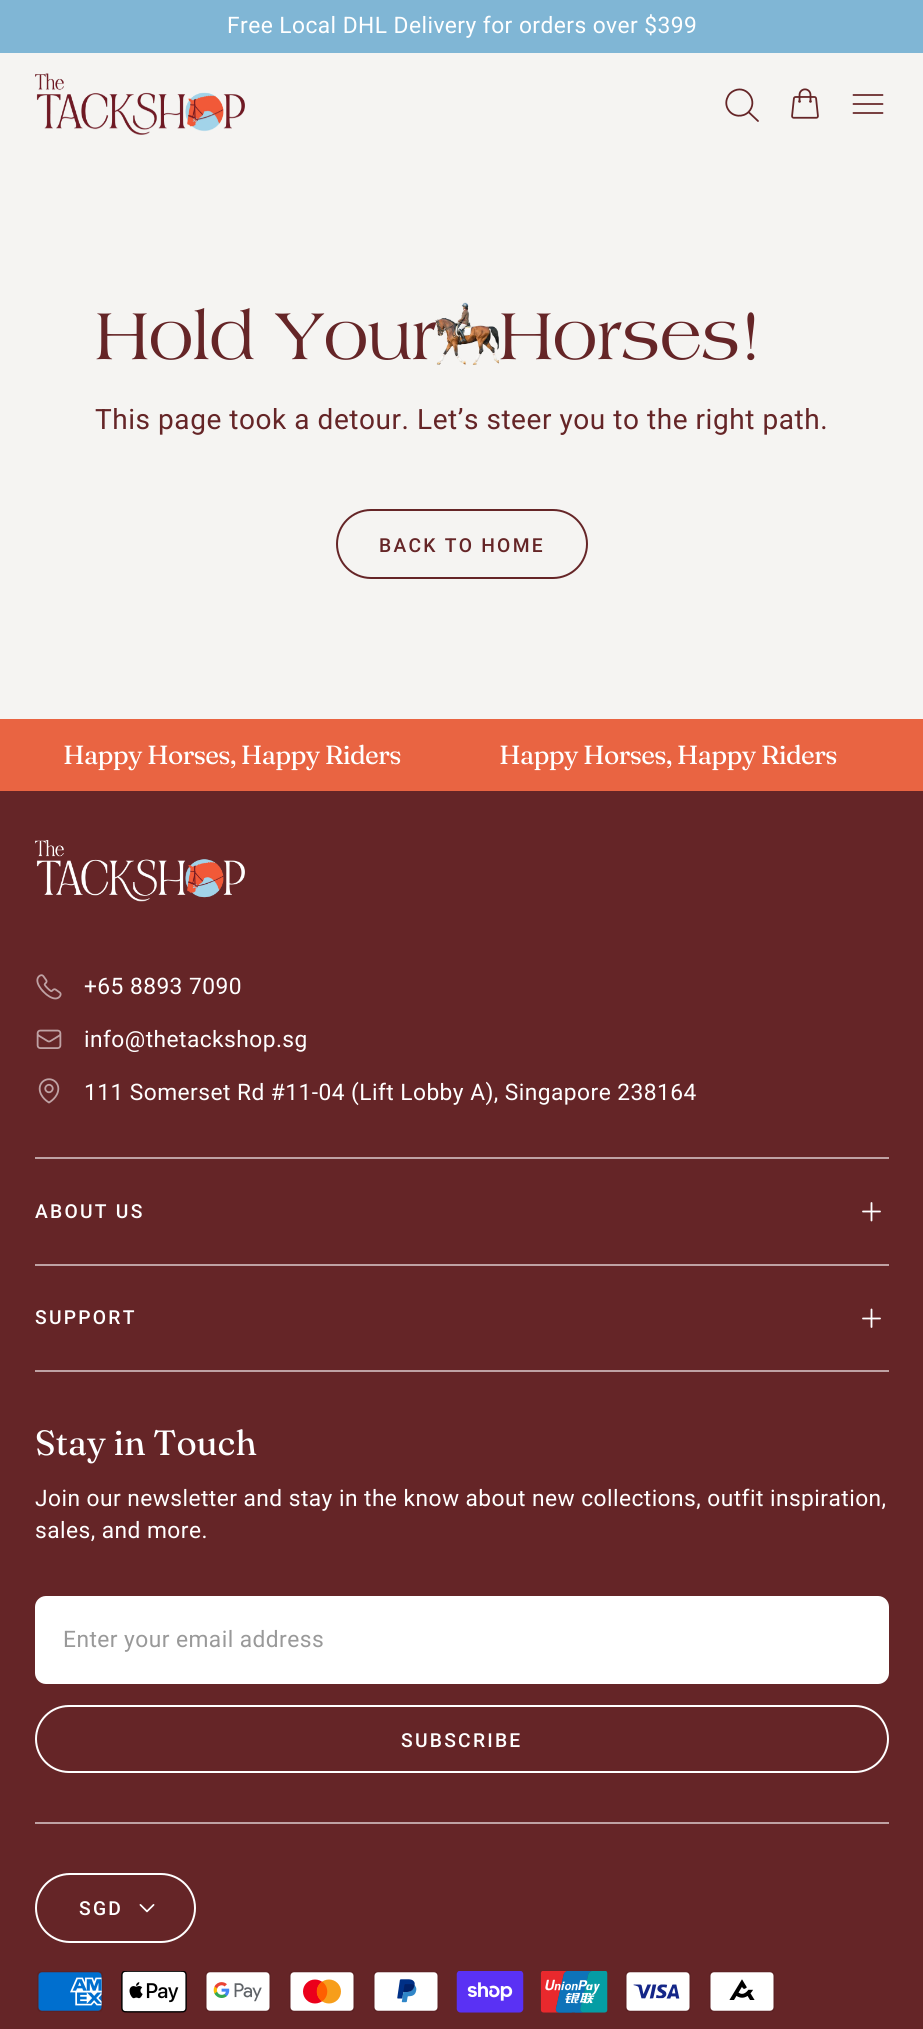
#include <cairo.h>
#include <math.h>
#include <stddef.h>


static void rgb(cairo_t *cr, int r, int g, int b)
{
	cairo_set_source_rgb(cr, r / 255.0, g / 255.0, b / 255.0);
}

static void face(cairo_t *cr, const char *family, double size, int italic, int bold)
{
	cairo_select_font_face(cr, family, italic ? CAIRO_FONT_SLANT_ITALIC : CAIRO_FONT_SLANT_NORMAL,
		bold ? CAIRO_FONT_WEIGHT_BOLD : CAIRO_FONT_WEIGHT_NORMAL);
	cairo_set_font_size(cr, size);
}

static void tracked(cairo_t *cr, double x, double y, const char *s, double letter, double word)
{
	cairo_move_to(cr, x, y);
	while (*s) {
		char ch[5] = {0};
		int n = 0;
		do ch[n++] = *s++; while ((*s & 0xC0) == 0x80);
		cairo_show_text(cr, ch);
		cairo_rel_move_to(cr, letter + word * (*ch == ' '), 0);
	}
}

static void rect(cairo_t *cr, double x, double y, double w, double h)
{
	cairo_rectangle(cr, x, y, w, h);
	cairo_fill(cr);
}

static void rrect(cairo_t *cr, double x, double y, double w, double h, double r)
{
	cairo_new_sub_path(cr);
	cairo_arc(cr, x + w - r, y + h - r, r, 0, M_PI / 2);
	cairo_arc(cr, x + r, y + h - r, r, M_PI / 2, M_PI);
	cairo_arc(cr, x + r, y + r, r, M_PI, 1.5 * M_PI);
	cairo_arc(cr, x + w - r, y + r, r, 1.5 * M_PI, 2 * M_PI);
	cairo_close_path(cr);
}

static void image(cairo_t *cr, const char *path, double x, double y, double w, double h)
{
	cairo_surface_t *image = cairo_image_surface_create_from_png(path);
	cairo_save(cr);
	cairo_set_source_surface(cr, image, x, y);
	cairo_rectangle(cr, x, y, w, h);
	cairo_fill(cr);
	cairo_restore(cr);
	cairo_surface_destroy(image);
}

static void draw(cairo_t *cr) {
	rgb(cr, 245, 244, 242);
	cairo_paint(cr);
	rgb(cr, 128, 182, 213);
	rect(cr, 0, 0, 923, 53);
	face(cr, "Roboto", 22.75, 0, 0);
	rgb(cr, 255, 255, 255);
	tracked(cr, 227, 33, "Free Local DHL Delivery for orders over $399", 0.45, 0);
	image(cr, "image0.png", 35, 73, 210, 62);
	cairo_new_path(cr);
	cairo_move_to(cr, 758, 121);
	cairo_line_to(cr, 748.5, 112);
	cairo_move_to(cr, 748.5, 112);
	cairo_curve_to(cr, 758.5, 102, 747.5, 85, 734.5, 90.5);
	cairo_curve_to(cr, 731, 92, 728.5, 94.5, 727.5, 97.5);
	cairo_curve_to(cr, 725.5, 101.5, 726, 106.5, 728.5, 110);
	cairo_curve_to(cr, 733, 117, 743, 117.5, 748.5, 112);
	cairo_close_path(cr);
	rgb(cr, 101, 37, 39);
	cairo_set_line_width(cr, 1.8);
	cairo_set_line_cap(cr, CAIRO_LINE_CAP_ROUND);
	cairo_set_line_join(cr, CAIRO_LINE_JOIN_ROUND);
	cairo_stroke(cr);
	image(cr, "image1.png", 791, 88, 28, 31);
	cairo_new_path(cr);
	cairo_move_to(cr, 853.5, 95);
	cairo_line_to(cr, 882.5, 95);
	cairo_move_to(cr, 853.5, 104);
	cairo_line_to(cr, 882.5, 104);
	cairo_move_to(cr, 853.5, 113);
	cairo_line_to(cr, 882.5, 113);
	cairo_stroke(cr);
	face(cr, "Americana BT", 70, 0, 0);
	tracked(cr, 95, 359, "Hold Your", -0.7, 0);
	image(cr, "image2.png", 435, 302, 64, 63);
	tracked(cr, 499, 359, "Horses!", -0.7, 0);
	face(cr, "Roboto", 28, 0, 0);
	tracked(cr, 95, 429, "This page took a detour. Let’s steer you to the right path.", 0.55, 0);
	rrect(cr, 337, 510, 250, 68, 34);
	cairo_set_line_width(cr, 2);
	cairo_set_line_cap(cr, CAIRO_LINE_CAP_BUTT);
	cairo_set_line_join(cr, CAIRO_LINE_JOIN_MITER);
	cairo_stroke(cr);
	face(cr, "Roboto Medium", 19.25, 0, 0);
	tracked(cr, 379, 552, "BACK TO HOME", 2.25, 0);
	rgb(cr, 233, 100, 66);
	rect(cr, 0, 719, 923, 72);
	face(cr, "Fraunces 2", 26.25, 0, 0);
	rgb(cr, 255, 255, 255);
	tracked(cr, 63, 764, "Happy Horses, Happy Riders", -0.7, 0);
	tracked(cr, 499, 764, "Happy Horses, Happy Riders", -0.7, 0);
	rgb(cr, 101, 37, 39);
	rect(cr, 0, 791, 923, 1238);
	rgb(cr, 191, 162, 164);
	rect(cr, 35, 1157, 854, 2);
	image(cr, "image3.png", 35, 840, 210, 62);
	image(cr, "image4.png", 36, 974, 26, 26);
	face(cr, "Roboto", 22.75, 0, 0);
	rgb(cr, 255, 255, 255);
	tracked(cr, 84, 994, "+65 8893 7090", 0.45, 0);
	image(cr, "image5.png", 36, 1029, 26, 20);
	tracked(cr, 84, 1047, "info@thetackshop.sg", 0.45, 0);
	image(cr, "image6.png", 38, 1078, 22, 26);
	tracked(cr, 84, 1100, "111 Somerset Rd #11-04 (Lift Lobby A), Singapore 238164", 0.45, 0);
	rgb(cr, 191, 162, 164);
	rect(cr, 35, 1370, 854, 2);
	face(cr, "Roboto Medium", 19.25, 0, 0);
	rgb(cr, 255, 255, 255);
	tracked(cr, 35, 1218, "ABOUT US", 2.25, 0);
	cairo_new_path(cr);
	cairo_move_to(cr, 871.5, 1203);
	cairo_line_to(cr, 871.5, 1220.5);
	cairo_move_to(cr, 880, 1211.5);
	cairo_line_to(cr, 863, 1211.5);
	cairo_set_line_width(cr, 1.8);
	cairo_set_line_cap(cr, CAIRO_LINE_CAP_ROUND);
	cairo_set_line_join(cr, CAIRO_LINE_JOIN_ROUND);
	cairo_stroke(cr);
	rgb(cr, 191, 162, 164);
	rect(cr, 35, 1264, 854, 2);
	rgb(cr, 255, 255, 255);
	tracked(cr, 35, 1324, "SUPPORT", 2.25, 0);
	cairo_new_path(cr);
	cairo_move_to(cr, 871.5, 1309.5);
	cairo_line_to(cr, 871.5, 1327);
	cairo_move_to(cr, 880, 1318.5);
	cairo_line_to(cr, 863, 1318.5);
	cairo_stroke(cr);
	face(cr, "Fraunces", 35, 0, 0);
	tracked(cr, 35, 1455, "Stay in Touch", -0.1, 0);
	face(cr, "Roboto", 22.75, 0, 0);
	tracked(cr, 35, 1506, "Join our newsletter and stay in the know about new collections, outfit inspiration,", 0.45, 0);
	tracked(cr, 35, 1538, "sales, and more.", 0.45, 0);
	rrect(cr, 35, 1596, 854, 88, 11);
	cairo_fill(cr);
	rgb(cr, 153, 153, 153);
	tracked(cr, 63, 1647, "Enter your email address", 0.45, 0);
	rrect(cr, 36, 1706, 852, 66, 33);
	rgb(cr, 255, 255, 255);
	cairo_set_line_width(cr, 2);
	cairo_set_line_cap(cr, CAIRO_LINE_CAP_BUTT);
	cairo_set_line_join(cr, CAIRO_LINE_JOIN_MITER);
	cairo_stroke(cr);
	face(cr, "Roboto Medium", 19.25, 0, 0);
	tracked(cr, 401, 1747, "SUBSCRIBE", 2.25, 0);
	rgb(cr, 191, 162, 164);
	rect(cr, 35, 1822, 854, 2);
	rrect(cr, 36, 1874, 159, 68, 34);
	rgb(cr, 255, 255, 255);
	cairo_stroke(cr);
	tracked(cr, 79, 1915, "SGD", 2.25, 0);
	image(cr, "image7.png", 139, 1904, 16, 9);
	image(cr, "image8.png", 37, 1971, 66, 41);
	image(cr, "image9.png", 121, 1971, 66, 42);
	image(cr, "image10.png", 205, 1971, 66, 41);
	image(cr, "image11.png", 289, 1971, 66, 41);
	image(cr, "image12.png", 373, 1971, 66, 41);
	image(cr, "image13.png", 456, 1971, 68, 42);
	image(cr, "image14.png", 540, 1971, 68, 42);
	image(cr, "image15.png", 625, 1971, 66, 41);
	image(cr, "image16.png", 709, 1971, 66, 41);
}

int main(void) {
	cairo_surface_t *surface = cairo_image_surface_create(CAIRO_FORMAT_RGB24, 923, 2029);
	cairo_t *cr = cairo_create(surface);
	cairo_font_options_t *options = cairo_font_options_create();
	cairo_font_options_set_hint_metrics(options, CAIRO_HINT_METRICS_OFF);
	cairo_font_options_set_hint_style(options, CAIRO_HINT_STYLE_NONE);
	cairo_set_font_options(cr, options);
	cairo_set_miter_limit(cr, 4);
	draw(cr);
	cairo_surface_write_to_png(surface, "render.png");
	cairo_font_options_destroy(options);
	cairo_destroy(cr);
	cairo_surface_destroy(surface);
	return 0;
}
